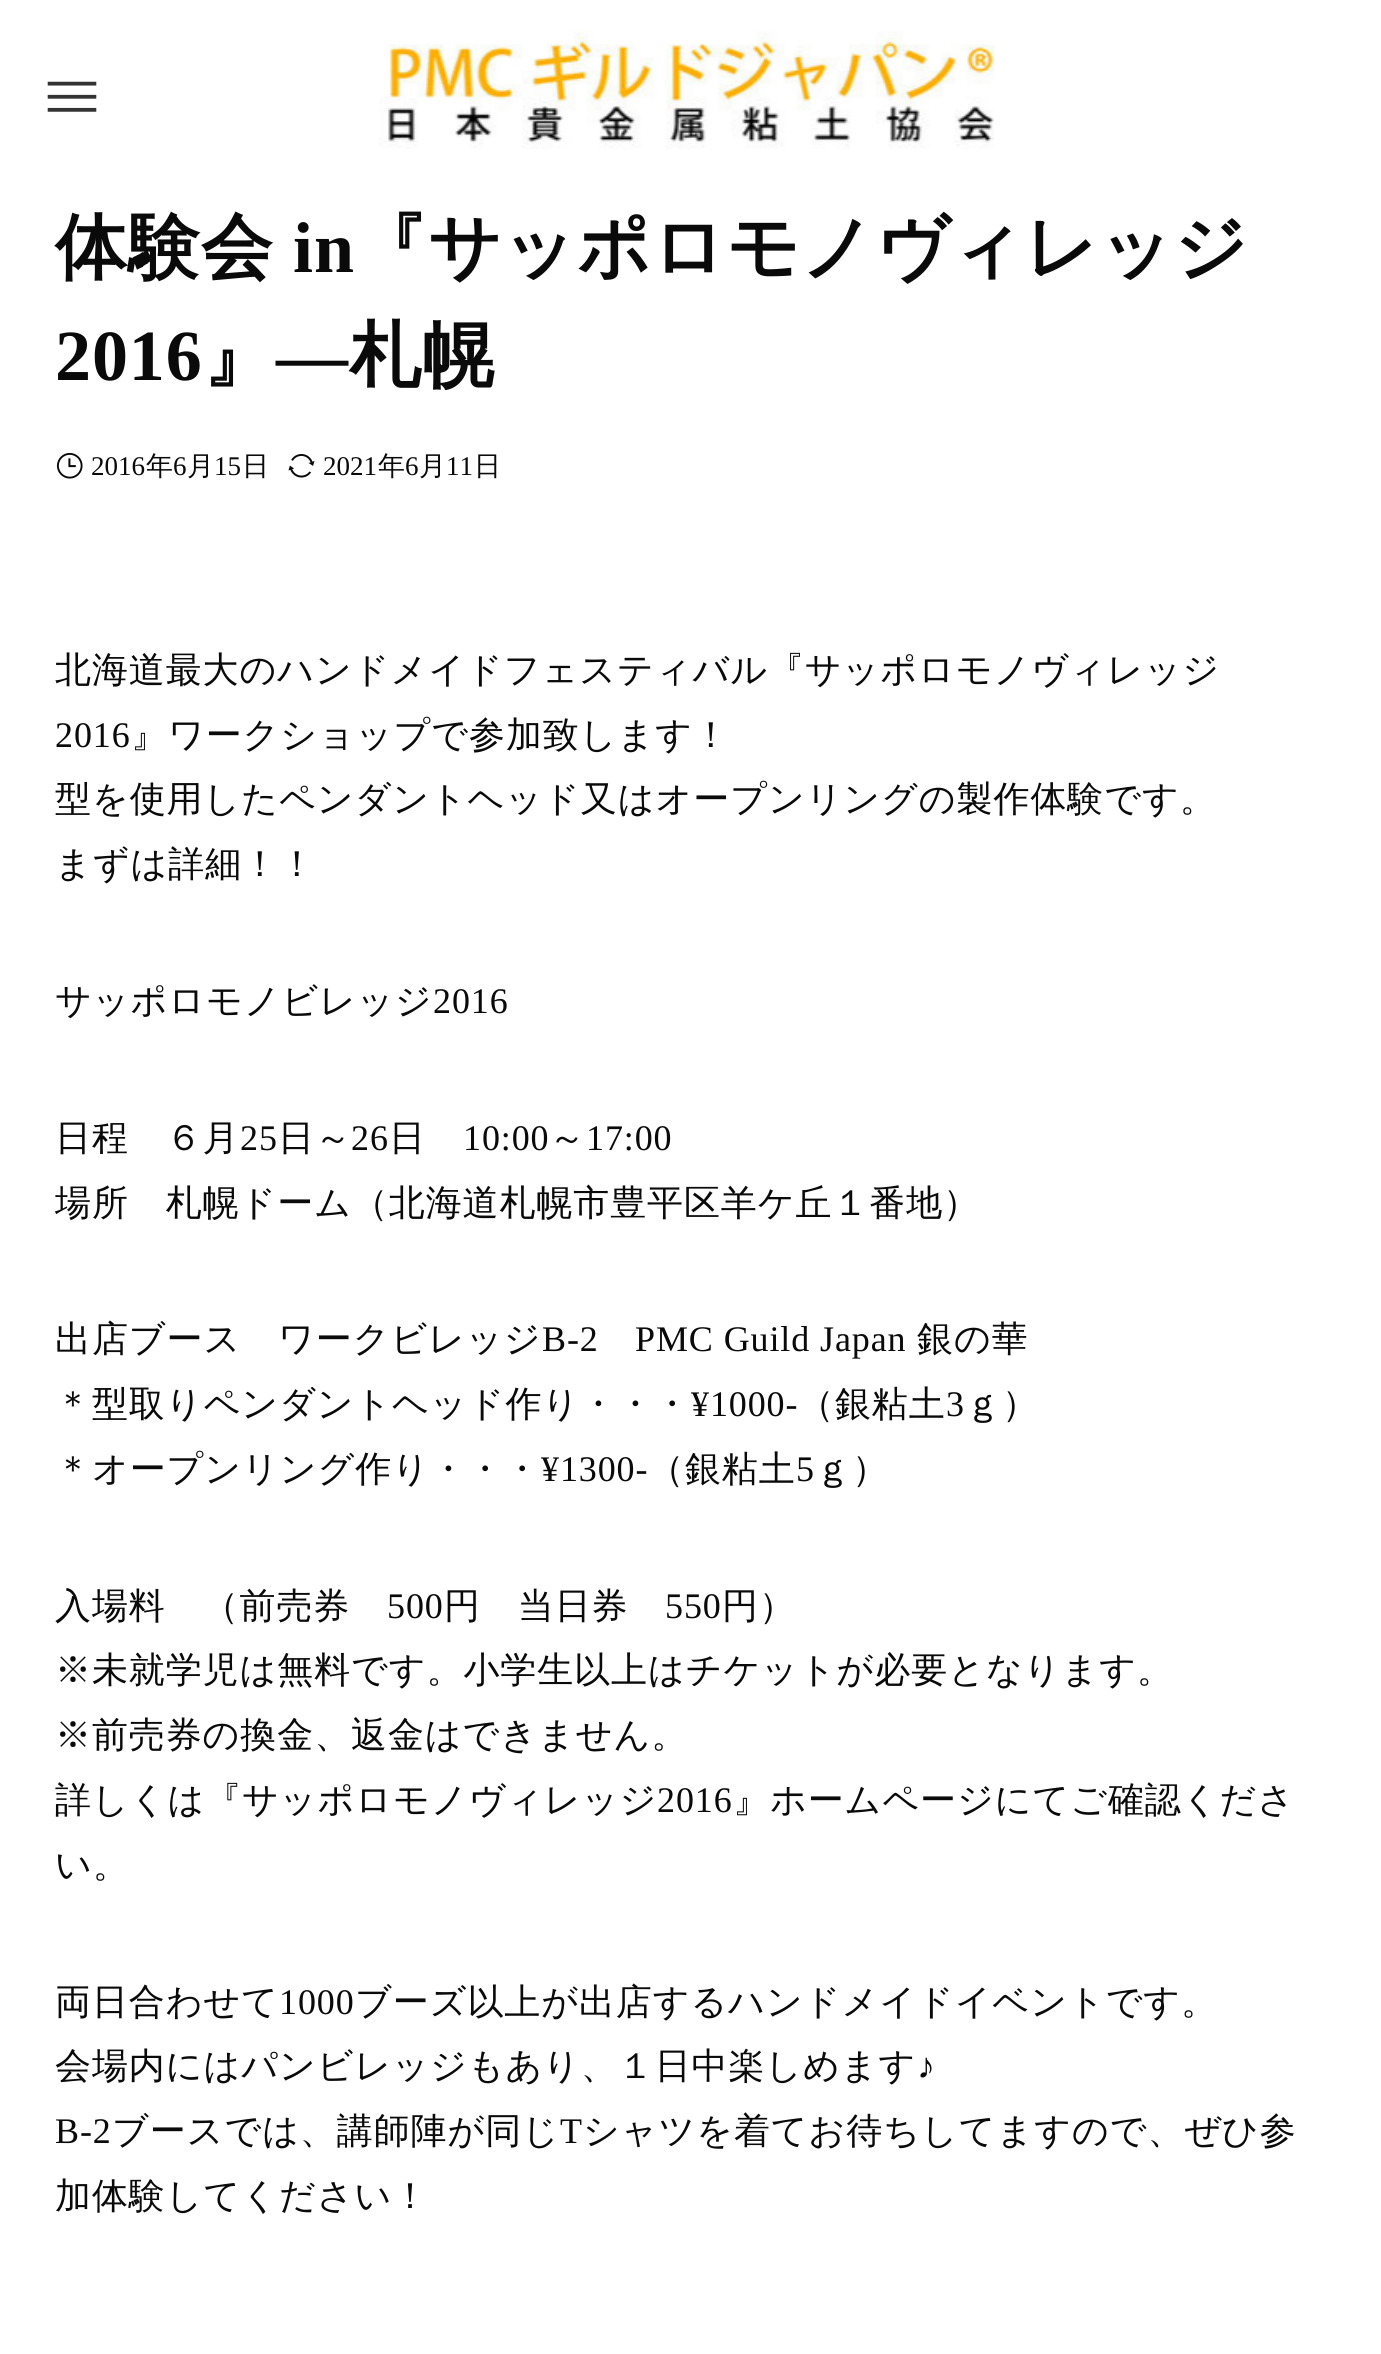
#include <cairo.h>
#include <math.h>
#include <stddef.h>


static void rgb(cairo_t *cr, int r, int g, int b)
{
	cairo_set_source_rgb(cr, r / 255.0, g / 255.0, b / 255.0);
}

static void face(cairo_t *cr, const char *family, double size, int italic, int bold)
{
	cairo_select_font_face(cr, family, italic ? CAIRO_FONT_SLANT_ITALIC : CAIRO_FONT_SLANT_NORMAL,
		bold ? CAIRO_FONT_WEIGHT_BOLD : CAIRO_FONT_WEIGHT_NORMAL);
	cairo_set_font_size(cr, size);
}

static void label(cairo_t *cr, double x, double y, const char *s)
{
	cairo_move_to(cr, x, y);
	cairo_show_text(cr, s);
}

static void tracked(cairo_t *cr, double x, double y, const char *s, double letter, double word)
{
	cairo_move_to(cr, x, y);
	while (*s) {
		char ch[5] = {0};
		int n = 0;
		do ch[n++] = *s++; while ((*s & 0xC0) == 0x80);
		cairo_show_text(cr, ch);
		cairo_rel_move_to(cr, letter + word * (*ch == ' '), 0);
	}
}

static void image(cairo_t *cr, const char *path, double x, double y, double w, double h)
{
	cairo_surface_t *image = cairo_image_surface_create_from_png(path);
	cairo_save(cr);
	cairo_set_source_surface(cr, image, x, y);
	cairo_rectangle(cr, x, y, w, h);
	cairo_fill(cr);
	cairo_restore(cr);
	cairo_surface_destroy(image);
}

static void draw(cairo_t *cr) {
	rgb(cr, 255, 255, 255);
	cairo_paint(cr);
	image(cr, "image0.png", 47, 81, 50, 31);
	image(cr, "image1.png", 379, 31, 616, 118);
	face(cr, "WenQuanYi Zen Hei", 72, 0, 1);
	rgb(cr, 10, 10, 10);
	tracked(cr, 55, 272, "体験会", 0.9, 0);
	face(cr, "Liberation Serif", 72, 0, 1);
	tracked(cr, 293, 272, "in", 0.9, 0);
	face(cr, "WenQuanYi Zen Hei", 72, 0, 1);
	tracked(cr, 355, 272, "『サッポロモノヴィレッジ", 0.9, 0);
	face(cr, "Liberation Serif", 72, 0, 1);
	tracked(cr, 55, 380, "2016", 0.9, 0);
	face(cr, "WenQuanYi Zen Hei", 72, 0, 1);
	tracked(cr, 203, 380, "』", 0.9, 0);
	face(cr, "Liberation Serif", 72, 0, 1);
	tracked(cr, 276, 380, "—", 0.9, 0);
	face(cr, "WenQuanYi Zen Hei", 72, 0, 1);
	tracked(cr, 349, 380, "札幌", 0.9, 0);
	image(cr, "image2.png", 56, 452, 27, 27);
	face(cr, "Liberation Serif", 27, 0, 0);
	label(cr, 91, 475, "2016");
	face(cr, "WenQuanYi Zen Hei Medium", 27, 0, 0);
	label(cr, 146, 475, "年");
	face(cr, "Liberation Serif", 27, 0, 0);
	label(cr, 173, 475, "6");
	face(cr, "WenQuanYi Zen Hei Medium", 27, 0, 0);
	label(cr, 187, 475, "月");
	face(cr, "Liberation Serif", 27, 0, 0);
	label(cr, 214, 475, "15");
	face(cr, "WenQuanYi Zen Hei Medium", 27, 0, 0);
	label(cr, 242, 475, "日");
	image(cr, "image3.png", 288, 454, 27, 24);
	face(cr, "Liberation Serif", 27, 0, 0);
	label(cr, 323, 475, "2021");
	face(cr, "WenQuanYi Zen Hei Medium", 27, 0, 0);
	label(cr, 378, 475, "年");
	face(cr, "Liberation Serif", 27, 0, 0);
	label(cr, 405, 475, "6");
	face(cr, "WenQuanYi Zen Hei Medium", 27, 0, 0);
	label(cr, 419, 475, "月");
	face(cr, "Liberation Serif", 27, 0, 0);
	label(cr, 446, 475, "11");
	face(cr, "WenQuanYi Zen Hei Medium", 27, 0, 0);
	label(cr, 474, 475, "日");
	face(cr, "WenQuanYi Zen Hei Medium", 36, 0, 0);
	tracked(cr, 55, 682, "北海道最大のハンドメイドフェスティバル『サッポロモノヴィレッジ", 0.9, 0);
	face(cr, "Liberation Serif", 36, 0, 0);
	tracked(cr, 55, 747, "2016", 0.9, 0);
	face(cr, "WenQuanYi Zen Hei Medium", 36, 0, 0);
	tracked(cr, 131, 747, "』ワークショップで参加致します！", 0.9, 0);
	tracked(cr, 55, 811, "型を使用したペンダントヘッド又はオープンリングの製作体験です。", 0.9, 0);
	tracked(cr, 55, 876, "まずは詳細！！", 0.9, 0);
	tracked(cr, 55, 1013, "サッポロモノビレッジ", 0.9, 0);
	face(cr, "Liberation Serif", 36, 0, 0);
	tracked(cr, 433, 1013, "2016", 0.9, 0);
	face(cr, "WenQuanYi Zen Hei Medium", 36, 0, 0);
	tracked(cr, 55, 1150, "日程　６月", 0.9, 0);
	face(cr, "Liberation Serif", 36, 0, 0);
	tracked(cr, 240, 1150, "25", 0.9, 0);
	face(cr, "WenQuanYi Zen Hei Medium", 36, 0, 0);
	tracked(cr, 278, 1150, "日～", 0.9, 0);
	face(cr, "Liberation Serif", 36, 0, 0);
	tracked(cr, 351, 1150, "26", 0.9, 0);
	face(cr, "WenQuanYi Zen Hei Medium", 36, 0, 0);
	tracked(cr, 389, 1150, "日", 0.9, 0);
	face(cr, "Liberation Serif", 36, 0, 0);
	tracked(cr, 463, 1150, "10:00", 0.9, 0);
	face(cr, "WenQuanYi Zen Hei Medium", 36, 0, 0);
	tracked(cr, 549, 1150, "～", 0.9, 0);
	face(cr, "Liberation Serif", 36, 0, 0);
	tracked(cr, 586, 1150, "17:00", 0.9, 0);
	face(cr, "WenQuanYi Zen Hei Medium", 36, 0, 0);
	tracked(cr, 55, 1215, "場所　札幌ドーム（北海道札幌市豊平区羊ケ丘１番地）", 0.9, 0);
	tracked(cr, 55, 1351, "出店ブース　ワークビレッジ", 0.9, 0);
	face(cr, "Liberation Serif", 36, 0, 0);
	tracked(cr, 542, 1351, "B-2", 0.9, 0);
	tracked(cr, 635, 1351, "PMC Guild Japan", 0.9, 0);
	face(cr, "WenQuanYi Zen Hei Medium", 36, 0, 0);
	tracked(cr, 917, 1351, "銀の華", 0.9, 0);
	tracked(cr, 55, 1416, "＊型取りペンダントヘッド作り・・・", 0.9, 0);
	face(cr, "Liberation Serif", 36, 0, 0);
	tracked(cr, 691, 1416, "¥1000-", 0.9, 0);
	face(cr, "WenQuanYi Zen Hei Medium", 36, 0, 0);
	tracked(cr, 798, 1416, "（銀粘土", 0.9, 0);
	face(cr, "Liberation Serif", 36, 0, 0);
	tracked(cr, 946, 1416, "3", 0.9, 0);
	face(cr, "WenQuanYi Zen Hei Medium", 36, 0, 0);
	tracked(cr, 965, 1416, "ｇ）", 0.9, 0);
	tracked(cr, 55, 1481, "＊オープンリング作り・・・", 0.9, 0);
	face(cr, "Liberation Serif", 36, 0, 0);
	tracked(cr, 541, 1481, "¥1300-", 0.9, 0);
	face(cr, "WenQuanYi Zen Hei Medium", 36, 0, 0);
	tracked(cr, 648, 1481, "（銀粘土", 0.9, 0);
	face(cr, "Liberation Serif", 36, 0, 0);
	tracked(cr, 796, 1481, "5", 0.9, 0);
	face(cr, "WenQuanYi Zen Hei Medium", 36, 0, 0);
	tracked(cr, 815, 1481, "ｇ）", 0.9, 0);
	tracked(cr, 55, 1618, "入場料　（前売券", 0.9, 0);
	face(cr, "Liberation Serif", 36, 0, 0);
	tracked(cr, 387, 1618, "500", 0.9, 0);
	face(cr, "WenQuanYi Zen Hei Medium", 36, 0, 0);
	tracked(cr, 444, 1618, "円　当日券", 0.9, 0);
	face(cr, "Liberation Serif", 36, 0, 0);
	tracked(cr, 665, 1618, "550", 0.9, 0);
	face(cr, "WenQuanYi Zen Hei Medium", 36, 0, 0);
	tracked(cr, 722, 1618, "円）", 0.9, 0);
	tracked(cr, 55, 1682, "※未就学児は無料です。小学生以上はチケットが必要となります。", 0.9, 0);
	tracked(cr, 55, 1747, "※前売券の換金、返金はできません。", 0.9, 0);
	tracked(cr, 55, 1812, "詳しくは『サッポロモノヴィレッジ", 0.9, 0);
	face(cr, "Liberation Serif", 36, 0, 0);
	tracked(cr, 657, 1812, "2016", 0.9, 0);
	face(cr, "WenQuanYi Zen Hei Medium", 36, 0, 0);
	tracked(cr, 733, 1812, "』ホームページにてご確認くださ", 0.9, 0);
	tracked(cr, 55, 1877, "い。", 0.9, 0);
	tracked(cr, 55, 2014, "両日合わせて", 0.9, 0);
	face(cr, "Liberation Serif", 36, 0, 0);
	tracked(cr, 279, 2014, "1000", 0.9, 0);
	face(cr, "WenQuanYi Zen Hei Medium", 36, 0, 0);
	tracked(cr, 355, 2014, "ブーズ以上が出店するハンドメイドイベントです。", 0.9, 0);
	tracked(cr, 55, 2078, "会場内にはパンビレッジもあり、１日中楽しめます", 0.9, 0);
	face(cr, "Liberation Serif", 36, 0, 0);
	tracked(cr, 917, 2078, "♪", 0.9, 0);
	tracked(cr, 55, 2143, "B-2", 0.9, 0);
	face(cr, "WenQuanYi Zen Hei Medium", 36, 0, 0);
	tracked(cr, 112, 2143, "ブースでは、講師陣が同じ", 0.9, 0);
	face(cr, "Liberation Serif", 36, 0, 0);
	tracked(cr, 560, 2143, "T", 0.9, 0);
	face(cr, "WenQuanYi Zen Hei Medium", 36, 0, 0);
	tracked(cr, 583, 2143, "シャツを着てお待ちしてますので、ぜひ参", 0.9, 0);
	tracked(cr, 55, 2208, "加体験してください！", 0.9, 0);
}

int main(void) {
	cairo_surface_t *surface = cairo_image_surface_create(CAIRO_FORMAT_RGB24, 1381, 2354);
	cairo_t *cr = cairo_create(surface);
	cairo_font_options_t *options = cairo_font_options_create();
	cairo_font_options_set_hint_metrics(options, CAIRO_HINT_METRICS_OFF);
	cairo_font_options_set_hint_style(options, CAIRO_HINT_STYLE_NONE);
	cairo_set_font_options(cr, options);
	cairo_set_miter_limit(cr, 4);
	draw(cr);
	cairo_surface_write_to_png(surface, "render.png");
	cairo_font_options_destroy(options);
	cairo_destroy(cr);
	cairo_surface_destroy(surface);
	return 0;
}
